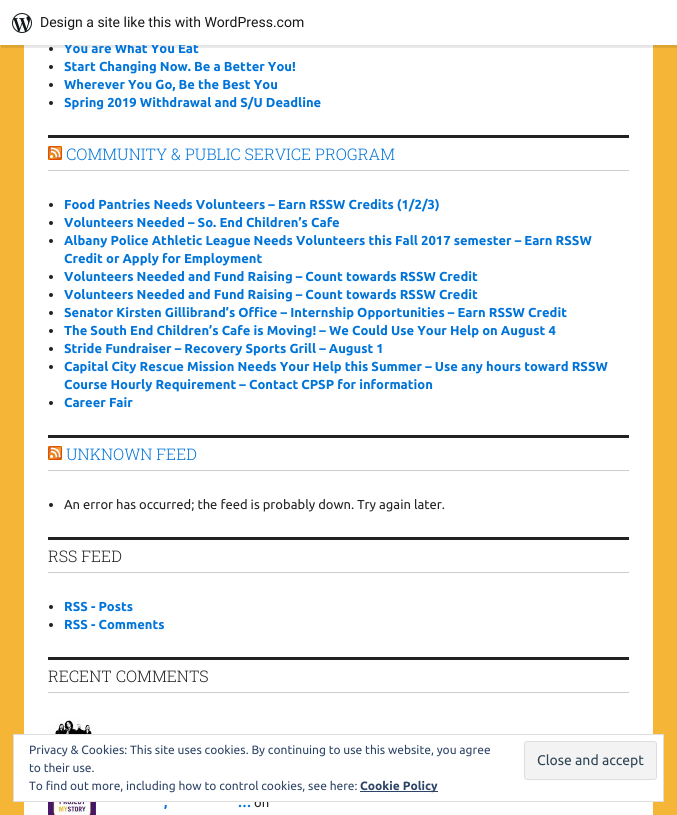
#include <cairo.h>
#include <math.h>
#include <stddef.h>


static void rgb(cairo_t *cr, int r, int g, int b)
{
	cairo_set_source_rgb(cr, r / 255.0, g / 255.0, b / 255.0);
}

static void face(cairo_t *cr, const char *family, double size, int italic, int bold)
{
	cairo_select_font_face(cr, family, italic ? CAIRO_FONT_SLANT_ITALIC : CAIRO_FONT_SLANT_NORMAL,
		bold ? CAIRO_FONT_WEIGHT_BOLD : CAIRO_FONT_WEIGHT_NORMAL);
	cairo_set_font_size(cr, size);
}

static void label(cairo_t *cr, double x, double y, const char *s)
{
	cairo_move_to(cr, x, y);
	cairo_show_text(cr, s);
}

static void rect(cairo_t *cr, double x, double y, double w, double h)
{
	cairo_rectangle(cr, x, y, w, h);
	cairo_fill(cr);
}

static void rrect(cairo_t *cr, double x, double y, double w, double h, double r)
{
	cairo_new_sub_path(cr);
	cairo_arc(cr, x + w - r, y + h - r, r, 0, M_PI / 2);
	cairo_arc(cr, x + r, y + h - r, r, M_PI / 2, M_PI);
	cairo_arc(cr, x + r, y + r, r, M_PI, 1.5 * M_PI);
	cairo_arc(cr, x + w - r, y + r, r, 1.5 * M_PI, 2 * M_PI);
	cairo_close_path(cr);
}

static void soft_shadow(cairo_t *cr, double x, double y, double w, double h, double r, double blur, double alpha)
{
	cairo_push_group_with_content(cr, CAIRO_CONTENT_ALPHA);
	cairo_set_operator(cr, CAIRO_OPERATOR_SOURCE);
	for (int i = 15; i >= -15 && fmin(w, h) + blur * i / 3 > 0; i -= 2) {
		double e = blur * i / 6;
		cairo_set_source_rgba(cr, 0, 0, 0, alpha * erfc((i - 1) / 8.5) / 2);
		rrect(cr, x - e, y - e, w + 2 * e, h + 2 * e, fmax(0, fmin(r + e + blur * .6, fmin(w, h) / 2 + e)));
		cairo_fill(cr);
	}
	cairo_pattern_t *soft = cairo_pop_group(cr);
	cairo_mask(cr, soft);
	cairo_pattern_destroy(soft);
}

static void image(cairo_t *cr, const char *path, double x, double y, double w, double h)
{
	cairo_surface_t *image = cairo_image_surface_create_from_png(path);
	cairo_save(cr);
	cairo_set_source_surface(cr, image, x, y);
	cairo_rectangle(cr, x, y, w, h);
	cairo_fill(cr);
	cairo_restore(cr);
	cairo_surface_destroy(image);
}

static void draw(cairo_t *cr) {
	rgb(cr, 245, 182, 55);
	cairo_paint(cr);
	rgb(cr, 255, 255, 255);
	rect(cr, 24, 45, 629, 770);
	rgb(cr, 34, 34, 34);
	cairo_arc(cr, 51, 49, 2, 0, 2 * M_PI);
	cairo_fill(cr);
	rgb(cr, 0, 0, 0);
	soft_shadow(cr, 0, 1, 677, 45, 0, 1, 0.05);
	cairo_set_source_rgba(cr, 0, 0, 0, 0.08);
	cairo_new_path(cr);
	cairo_move_to(cr, 1, 45);
	cairo_line_to(cr, 1, 48);
	cairo_line_to(cr, 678, 48);
	cairo_line_to(cr, 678, 3);
	cairo_line_to(cr, 677, 3);
	cairo_line_to(cr, 677, 45);
	cairo_close_path(cr);
	cairo_fill(cr);
	face(cr, "Ubuntu", 13, 0, 1);
	rgb(cr, 0, 116, 217);
	label(cr, 64, 53, "You are What You Eat");
	rgb(cr, 255, 255, 255);
	rect(cr, 0, 0, 677, 45);
	image(cr, "image0.png", 12, 13, 20, 20);
	face(cr, "Roboto", 14, 0, 0);
	rgb(cr, 23, 23, 23);
	label(cr, 40, 27, "Design a site like this with WordPress.com");
	rgb(cr, 34, 34, 34);
	cairo_new_path(cr);
	cairo_arc(cr, 51, 67, 2, 0, 2 * M_PI);
	cairo_fill(cr);
	face(cr, "Ubuntu", 13, 0, 1);
	rgb(cr, 0, 116, 217);
	label(cr, 64, 71, "Start Changing Now. Be a Better You!");
	rgb(cr, 34, 34, 34);
	cairo_new_path(cr);
	cairo_arc(cr, 51, 85, 2, 0, 2 * M_PI);
	cairo_fill(cr);
	rgb(cr, 0, 116, 217);
	label(cr, 64, 89, "Wherever You Go, Be the Best You");
	rgb(cr, 34, 34, 34);
	cairo_new_path(cr);
	cairo_arc(cr, 51, 103, 2, 0, 2 * M_PI);
	cairo_fill(cr);
	rgb(cr, 0, 116, 217);
	label(cr, 64, 107, "Spring 2019 Withdrawal and S/U Deadline");
	rgb(cr, 34, 34, 34);
	rect(cr, 48, 135, 581, 3);
	rgb(cr, 204, 204, 204);
	rect(cr, 48, 170, 581, 1);
	rgb(cr, 255, 165, 0);
	rect(cr, 48, 146, 14, 14);
	image(cr, "image1.png", 48, 146, 14, 14);
	face(cr, "Roboto Slab Light", 16, 0, 0);
	rgb(cr, 0, 116, 217);
	label(cr, 66, 160, "COMMUNITY & PUBLIC SERVICE PROGRAM");
	rgb(cr, 34, 34, 34);
	cairo_new_path(cr);
	cairo_arc(cr, 51, 205, 2, 0, 2 * M_PI);
	cairo_fill(cr);
	face(cr, "Ubuntu", 13, 0, 1);
	rgb(cr, 0, 116, 217);
	label(cr, 64, 209, "Food Pantries Needs Volunteers – Earn RSSW Credits (1/2/3)");
	rgb(cr, 34, 34, 34);
	cairo_new_path(cr);
	cairo_arc(cr, 51, 223, 2, 0, 2 * M_PI);
	cairo_fill(cr);
	rgb(cr, 0, 116, 217);
	label(cr, 64, 227, "Volunteers Needed – So. End Children’s Cafe");
	rgb(cr, 34, 34, 34);
	cairo_new_path(cr);
	cairo_arc(cr, 51, 241, 2, 0, 2 * M_PI);
	cairo_fill(cr);
	rgb(cr, 0, 116, 217);
	label(cr, 64, 245, "Albany Police Athletic League Needs Volunteers this Fall 2017 semester – Earn RSSW");
	label(cr, 64, 263, "Credit or Apply for Employment");
	rgb(cr, 34, 34, 34);
	cairo_new_path(cr);
	cairo_arc(cr, 51, 277, 2, 0, 2 * M_PI);
	cairo_fill(cr);
	rgb(cr, 0, 116, 217);
	label(cr, 64, 281, "Volunteers Needed and Fund Raising – Count towards RSSW Credit");
	rgb(cr, 34, 34, 34);
	cairo_new_path(cr);
	cairo_arc(cr, 51, 295, 2, 0, 2 * M_PI);
	cairo_fill(cr);
	rgb(cr, 0, 116, 217);
	label(cr, 64, 299, "Volunteers Needed and Fund Raising – Count towards RSSW Credit");
	rgb(cr, 34, 34, 34);
	cairo_new_path(cr);
	cairo_arc(cr, 51, 313, 2, 0, 2 * M_PI);
	cairo_fill(cr);
	rgb(cr, 0, 116, 217);
	label(cr, 64, 317, "Senator Kirsten Gillibrand’s Office – Internship Opportunities – Earn RSSW Credit");
	rgb(cr, 34, 34, 34);
	cairo_new_path(cr);
	cairo_arc(cr, 51, 331, 2, 0, 2 * M_PI);
	cairo_fill(cr);
	rgb(cr, 0, 116, 217);
	label(cr, 64, 335, "The South End Children’s Cafe is Moving! – We Could Use Your Help on August 4");
	rgb(cr, 34, 34, 34);
	cairo_new_path(cr);
	cairo_arc(cr, 51, 349, 2, 0, 2 * M_PI);
	cairo_fill(cr);
	rgb(cr, 0, 116, 217);
	label(cr, 64, 353, "Stride Fundraiser – Recovery Sports Grill – August 1");
	rgb(cr, 34, 34, 34);
	cairo_new_path(cr);
	cairo_arc(cr, 51, 367, 2, 0, 2 * M_PI);
	cairo_fill(cr);
	rgb(cr, 0, 116, 217);
	label(cr, 64, 371, "Capital City Rescue Mission Needs Your Help this Summer – Use any hours toward RSSW");
	label(cr, 64, 389, "Course Hourly Requirement – Contact CPSP for information");
	rgb(cr, 34, 34, 34);
	cairo_new_path(cr);
	cairo_arc(cr, 51, 403, 2, 0, 2 * M_PI);
	cairo_fill(cr);
	rgb(cr, 0, 116, 217);
	label(cr, 64, 407, "Career Fair");
	rgb(cr, 34, 34, 34);
	rect(cr, 48, 435, 581, 3);
	rgb(cr, 204, 204, 204);
	rect(cr, 48, 470, 581, 1);
	rgb(cr, 255, 165, 0);
	rect(cr, 48, 446, 14, 14);
	image(cr, "image1.png", 48, 446, 14, 14);
	face(cr, "Roboto Slab Light", 16, 0, 0);
	rgb(cr, 0, 116, 217);
	label(cr, 66, 460, "UNKNOWN FEED");
	rgb(cr, 34, 34, 34);
	cairo_new_path(cr);
	cairo_arc(cr, 51, 505, 2, 0, 2 * M_PI);
	cairo_fill(cr);
	face(cr, "Ubuntu", 13, 0, 0);
	label(cr, 64, 509, "An error has occurred; the feed is probably down. Try again later.");
	rect(cr, 48, 537, 581, 3);
	rgb(cr, 204, 204, 204);
	rect(cr, 48, 572, 581, 1);
	face(cr, "Roboto Slab Light", 16, 0, 0);
	rgb(cr, 34, 34, 34);
	label(cr, 48, 562, "RSS FEED");
	cairo_new_path(cr);
	cairo_arc(cr, 51, 607, 2, 0, 2 * M_PI);
	cairo_fill(cr);
	face(cr, "Ubuntu", 13, 0, 1);
	rgb(cr, 0, 116, 217);
	label(cr, 64, 611, "RSS - Posts");
	rgb(cr, 34, 34, 34);
	cairo_new_path(cr);
	cairo_arc(cr, 51, 625, 2, 0, 2 * M_PI);
	cairo_fill(cr);
	rgb(cr, 0, 116, 217);
	label(cr, 64, 629, "RSS - Comments");
	rgb(cr, 34, 34, 34);
	rect(cr, 48, 657, 581, 3);
	rgb(cr, 204, 204, 204);
	rect(cr, 48, 692, 581, 1);
	face(cr, "Roboto Slab Light", 16, 0, 0);
	rgb(cr, 34, 34, 34);
	label(cr, 48, 682, "RECENT COMMENTS");
	image(cr, "image2.png", 48, 717, 48, 17);
	image(cr, "image3.png", 48, 802, 48, 13);
	face(cr, "Ubuntu", 13, 0, 1);
	rgb(cr, 0, 116, 217);
	label(cr, 164, 807, ",");
	label(cr, 238, 807, "…");
	face(cr, "Ubuntu", 13, 0, 0);
	rgb(cr, 34, 34, 34);
	label(cr, 254, 807, "on");
	rgb(cr, 255, 255, 255);
	cairo_rectangle(cr, 13.5, 734.5, 650, 67);
	cairo_fill_preserve(cr);
	rgb(cr, 222, 222, 222);
	cairo_set_line_width(cr, 1);
	cairo_stroke(cr);
	face(cr, "Ubuntu", 12, 0, 0);
	rgb(cr, 46, 68, 103);
	label(cr, 29, 754, "Privacy & Cookies: This site uses cookies. By continuing to use this website, you agree");
	label(cr, 29, 772, "to their use.");
	rgb(cr, 243, 243, 243);
	rrect(cr, 524.5, 741.5, 132, 38, 2.5);
	cairo_fill_preserve(cr);
	rgb(cr, 222, 222, 222);
	cairo_stroke(cr);
	face(cr, "Ubuntu", 14, 0, 0);
	rgb(cr, 46, 68, 83);
	label(cr, 537, 765, "Close and accept");
	face(cr, "Ubuntu", 12, 0, 0);
	rgb(cr, 46, 68, 103);
	label(cr, 29, 790, "To find out more, including how to control cookies, see here:");
	rect(cr, 360, 791, 78, 1);
	face(cr, "Ubuntu", 12, 0, 1);
	label(cr, 360, 790, "Cookie Policy");
}

int main(void) {
	cairo_surface_t *surface = cairo_image_surface_create(CAIRO_FORMAT_RGB24, 677, 815);
	cairo_t *cr = cairo_create(surface);
	cairo_font_options_t *options = cairo_font_options_create();
	cairo_font_options_set_hint_metrics(options, CAIRO_HINT_METRICS_OFF);
	cairo_font_options_set_hint_style(options, CAIRO_HINT_STYLE_NONE);
	cairo_set_font_options(cr, options);
	cairo_set_miter_limit(cr, 4);
	draw(cr);
	cairo_surface_write_to_png(surface, "render.png");
	cairo_font_options_destroy(options);
	cairo_destroy(cr);
	cairo_surface_destroy(surface);
	return 0;
}
